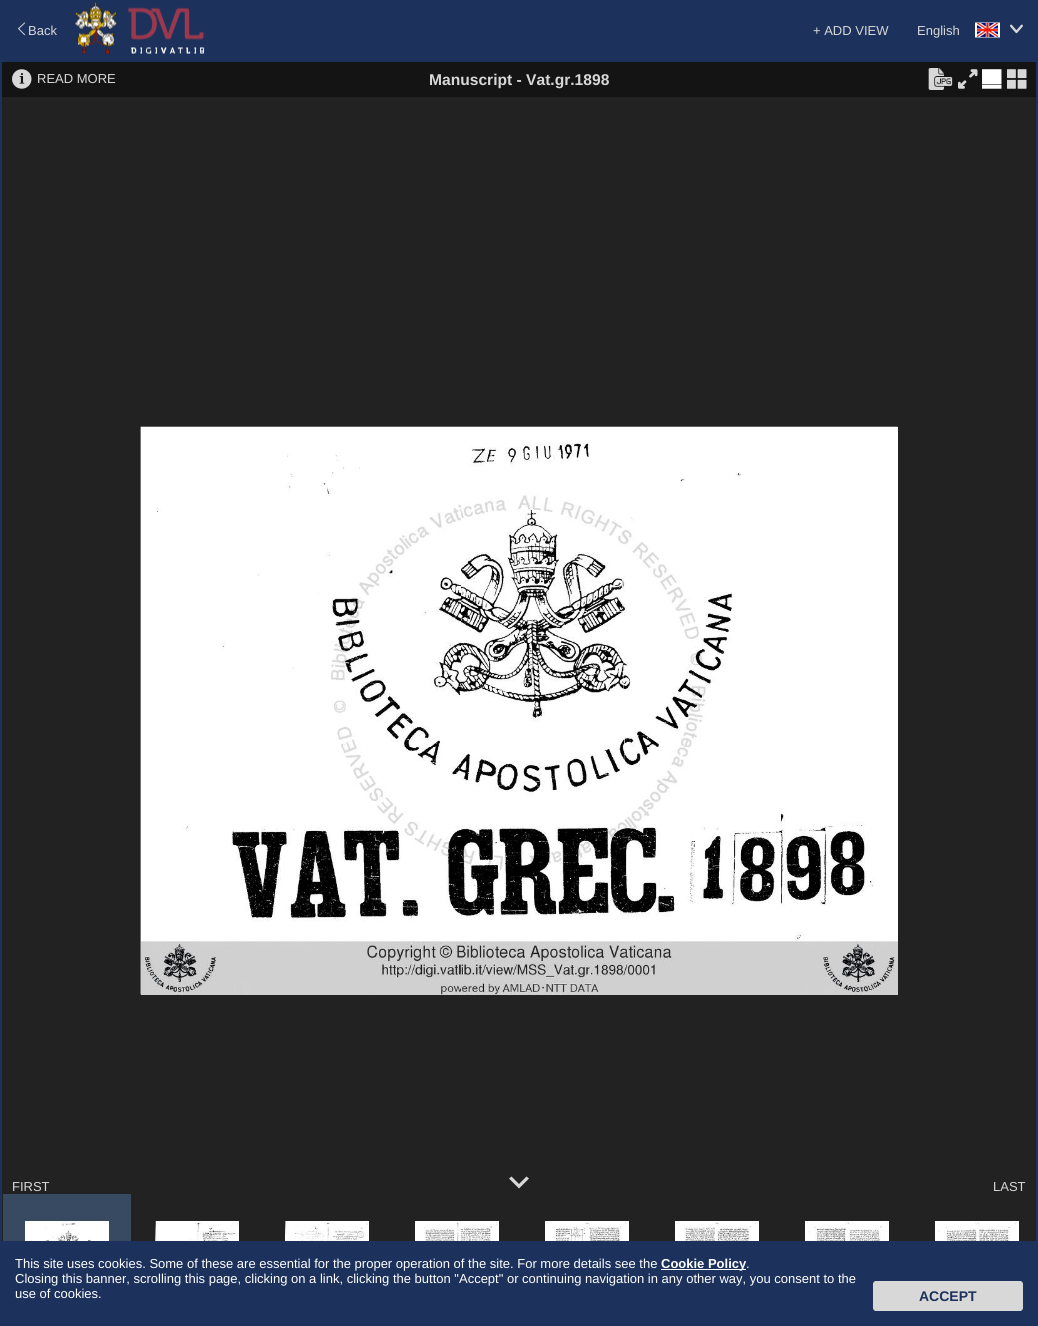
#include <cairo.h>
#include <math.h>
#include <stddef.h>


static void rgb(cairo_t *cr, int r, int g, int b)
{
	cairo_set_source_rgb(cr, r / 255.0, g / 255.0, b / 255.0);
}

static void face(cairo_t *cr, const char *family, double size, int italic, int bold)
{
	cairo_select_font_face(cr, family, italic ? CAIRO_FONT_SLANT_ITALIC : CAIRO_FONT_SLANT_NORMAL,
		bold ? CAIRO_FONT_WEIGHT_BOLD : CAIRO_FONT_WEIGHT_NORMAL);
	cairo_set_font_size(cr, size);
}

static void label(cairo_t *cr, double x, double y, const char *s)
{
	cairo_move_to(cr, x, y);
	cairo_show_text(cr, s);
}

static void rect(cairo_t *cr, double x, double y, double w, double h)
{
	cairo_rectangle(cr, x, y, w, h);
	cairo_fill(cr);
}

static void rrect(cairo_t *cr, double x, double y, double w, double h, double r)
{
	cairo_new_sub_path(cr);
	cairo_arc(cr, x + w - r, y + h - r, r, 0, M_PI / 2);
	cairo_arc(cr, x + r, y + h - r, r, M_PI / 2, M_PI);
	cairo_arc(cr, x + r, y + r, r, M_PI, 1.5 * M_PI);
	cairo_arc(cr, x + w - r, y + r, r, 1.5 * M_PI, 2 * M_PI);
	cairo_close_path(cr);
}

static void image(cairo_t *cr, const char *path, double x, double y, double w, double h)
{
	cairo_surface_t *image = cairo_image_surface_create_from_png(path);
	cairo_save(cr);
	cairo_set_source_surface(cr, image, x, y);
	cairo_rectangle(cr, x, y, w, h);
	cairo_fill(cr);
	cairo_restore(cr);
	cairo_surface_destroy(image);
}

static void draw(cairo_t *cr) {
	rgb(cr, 28, 49, 91);
	cairo_paint(cr);
	image(cr, "image0.png", 17, 22, 9, 14);
	face(cr, "Liberation Sans", 13, 0, 0);
	rgb(cr, 216, 216, 216);
	label(cr, 28, 35, "Back");
	image(cr, "image1.png", 75, 2, 130, 53);
	label(cr, 813, 35, "+ ADD VIEW");
	image(cr, "image2.png", 975, 22, 25, 16);
	label(cr, 917, 35, "English");
	image(cr, "image3.png", 1010, 24, 13, 10);
	rgb(cr, 20, 20, 20);
	rect(cr, 2, 62, 1034, 35);
	image(cr, "image4.png", 12, 69, 20, 20);
	rgb(cr, 216, 216, 216);
	label(cr, 37, 83, "READ MORE");
	face(cr, "Liberation Sans", 15.6, 0, 1);
	label(cr, 429, 85, "Manuscript - Vat.gr.1898");
	image(cr, "image5.png", 928, 68, 25, 22);
	image(cr, "image6.png", 958, 69, 20, 20);
	image(cr, "image7.png", 982, 69, 20, 20);
	image(cr, "image8.png", 1007, 69, 20, 20);
	rgb(cr, 34, 34, 34);
	rect(cr, 2, 97, 1034, 1144);
	image(cr, "image9.png", 140, 426, 758, 569);
	face(cr, "Liberation Sans", 13, 0, 0);
	rgb(cr, 216, 216, 216);
	label(cr, 12, 1191, "FIRST");
	cairo_new_path(cr);
	cairo_move_to(cr, 526.5, 1176.5);
	cairo_line_to(cr, 519, 1184);
	cairo_line_to(cr, 511.5, 1176.5);
	cairo_line_to(cr, 509, 1178.5);
	cairo_line_to(cr, 519, 1188.5);
	cairo_line_to(cr, 529, 1178.5);
	cairo_close_path(cr);
	cairo_fill(cr);
	label(cr, 993, 1191, "LAST");
	rgb(cr, 55, 74, 98);
	rect(cr, 3, 1194, 128, 47);
	image(cr, "image10.png", 25, 1221, 84, 20);
	image(cr, "image11.png", 155, 1221, 84, 20);
	image(cr, "image12.png", 285, 1221, 84, 20);
	image(cr, "image13.png", 415, 1221, 84, 20);
	image(cr, "image14.png", 545, 1221, 84, 20);
	image(cr, "image15.png", 675, 1221, 84, 20);
	image(cr, "image16.png", 805, 1221, 84, 20);
	image(cr, "image17.png", 935, 1221, 84, 20);
	rgb(cr, 255, 255, 255);
	label(cr, 15, 1268, "This site uses cookies. Some of these are essential for the proper operation of the site. For more details see the");
	rect(cr, 661, 1269, 85, 1);
	face(cr, "Liberation Sans", 13, 0, 1);
	label(cr, 661, 1268, "Cookie Policy");
	face(cr, "Liberation Sans", 13, 0, 0);
	label(cr, 746, 1268, ".");
	label(cr, 15, 1283, "Closing this banner, scrolling this page, clicking on a link, clicking the button \"Accept\" or continuing navigation in any other way, you consent to the");
	label(cr, 15, 1298, "use of cookies.");
	rgb(cr, 216, 216, 216);
	rrect(cr, 873.5, 1281.5, 149, 29, 2.5);
	cairo_fill_preserve(cr);
	cairo_set_line_width(cr, 1);
	cairo_stroke(cr);
	face(cr, "Liberation Sans", 14, 0, 1);
	rgb(cr, 28, 49, 91);
	label(cr, 919, 1301, "ACCEPT");
}

int main(void) {
	cairo_surface_t *surface = cairo_image_surface_create(CAIRO_FORMAT_RGB24, 1038, 1326);
	cairo_t *cr = cairo_create(surface);
	cairo_font_options_t *options = cairo_font_options_create();
	cairo_font_options_set_hint_metrics(options, CAIRO_HINT_METRICS_OFF);
	cairo_font_options_set_hint_style(options, CAIRO_HINT_STYLE_NONE);
	cairo_set_font_options(cr, options);
	cairo_set_miter_limit(cr, 4);
	draw(cr);
	cairo_surface_write_to_png(surface, "render.png");
	cairo_font_options_destroy(options);
	cairo_destroy(cr);
	cairo_surface_destroy(surface);
	return 0;
}
